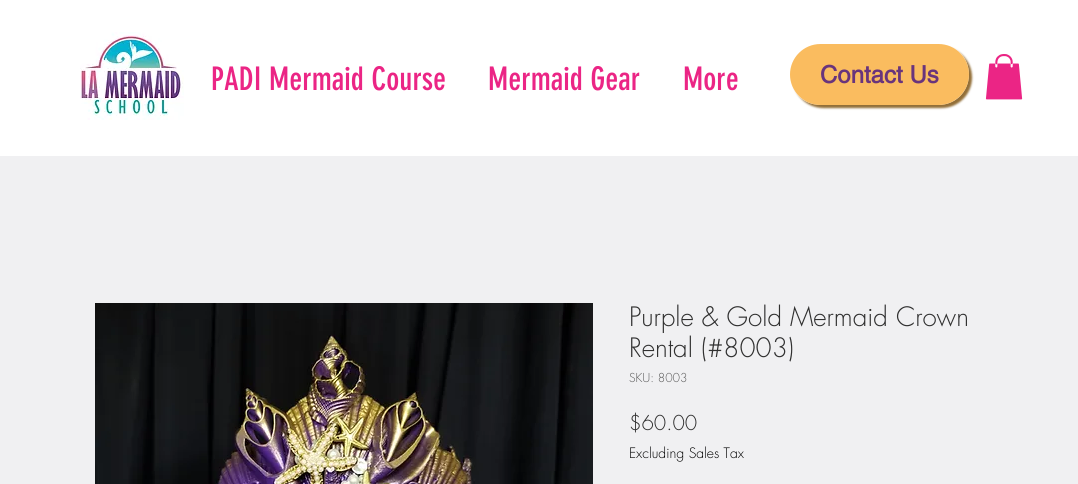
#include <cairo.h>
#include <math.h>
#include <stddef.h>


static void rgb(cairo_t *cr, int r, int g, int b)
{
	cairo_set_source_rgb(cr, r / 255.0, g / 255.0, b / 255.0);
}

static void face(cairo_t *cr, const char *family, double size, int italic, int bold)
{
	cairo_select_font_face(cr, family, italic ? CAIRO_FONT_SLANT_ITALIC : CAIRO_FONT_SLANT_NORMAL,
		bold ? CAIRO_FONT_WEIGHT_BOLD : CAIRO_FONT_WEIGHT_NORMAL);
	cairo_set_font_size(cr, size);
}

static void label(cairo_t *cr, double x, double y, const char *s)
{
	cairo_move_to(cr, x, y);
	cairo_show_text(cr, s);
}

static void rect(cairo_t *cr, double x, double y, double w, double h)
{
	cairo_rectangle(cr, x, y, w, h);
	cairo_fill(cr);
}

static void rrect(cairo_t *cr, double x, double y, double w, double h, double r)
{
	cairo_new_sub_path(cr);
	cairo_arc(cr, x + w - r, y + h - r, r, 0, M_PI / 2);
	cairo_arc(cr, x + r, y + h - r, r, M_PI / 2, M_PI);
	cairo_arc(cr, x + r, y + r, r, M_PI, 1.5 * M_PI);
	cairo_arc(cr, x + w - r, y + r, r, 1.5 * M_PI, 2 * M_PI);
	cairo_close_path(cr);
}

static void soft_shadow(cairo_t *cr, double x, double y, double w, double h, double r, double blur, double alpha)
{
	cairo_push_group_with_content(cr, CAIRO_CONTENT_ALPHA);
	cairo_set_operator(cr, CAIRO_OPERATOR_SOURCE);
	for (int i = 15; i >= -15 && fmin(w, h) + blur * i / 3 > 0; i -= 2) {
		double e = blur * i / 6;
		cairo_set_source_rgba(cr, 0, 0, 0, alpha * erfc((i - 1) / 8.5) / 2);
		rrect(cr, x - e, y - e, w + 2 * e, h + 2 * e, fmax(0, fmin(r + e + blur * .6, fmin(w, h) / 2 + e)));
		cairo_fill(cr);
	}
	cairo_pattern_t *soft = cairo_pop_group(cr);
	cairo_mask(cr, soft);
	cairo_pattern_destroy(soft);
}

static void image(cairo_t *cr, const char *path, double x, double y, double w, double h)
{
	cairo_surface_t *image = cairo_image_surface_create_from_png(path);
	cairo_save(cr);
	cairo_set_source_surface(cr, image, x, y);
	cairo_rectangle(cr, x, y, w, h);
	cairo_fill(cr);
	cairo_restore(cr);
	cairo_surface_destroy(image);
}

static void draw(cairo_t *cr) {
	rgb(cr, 240, 240, 242);
	cairo_paint(cr);
	rgb(cr, 255, 255, 255);
	rect(cr, 0, 0, 1078, 156);
	image(cr, "image0.png", 80, 32, 104, 88);
	face(cr, "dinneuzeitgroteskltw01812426", 32, 0, 0);
	rgb(cr, 235, 37, 133);
	label(cr, 211, 90, "PADI Mermaid Course");
	label(cr, 488, 90, "Mermaid Gear");
	label(cr, 683, 90, "More");
	cairo_save(cr);
	cairo_set_fill_rule(cr, CAIRO_FILL_RULE_EVEN_ODD);
	cairo_new_path(cr);
	cairo_move_to(cr, 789, 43);
	cairo_line_to(cr, 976, 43);
	cairo_line_to(cr, 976, 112);
	cairo_line_to(cr, 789, 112);
	cairo_close_path(cr);
	cairo_move_to(cr, 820.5, 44);
	cairo_line_to(cr, 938.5, 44);
	cairo_curve_to(cr, 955.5, 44, 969, 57.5, 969, 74.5);
	cairo_curve_to(cr, 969, 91.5, 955.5, 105, 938.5, 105);
	cairo_line_to(cr, 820.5, 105);
	cairo_curve_to(cr, 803.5, 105, 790, 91.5, 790, 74.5);
	cairo_curve_to(cr, 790, 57.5, 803.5, 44, 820.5, 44);
	cairo_close_path(cr);
	cairo_clip(cr);
	rgb(cr, 146, 110, 55);
	soft_shadow(cr, 793, 47, 179, 61, 30.5, 1, 1);
	cairo_restore(cr);
	cairo_set_source_rgba(cr, 0.969, 0.608, 0.067, 0.67);
	rrect(cr, 790, 44, 179, 61, 30.5);
	cairo_fill(cr);
	face(cr, "helvetica", 24, 0, 1);
	rgb(cr, 105, 52, 124);
	label(cr, 820, 83, "Contact Us");
	image(cr, "image1.png", 985, 54, 38, 46);
	image(cr, "image2.png", 95, 303, 498, 181);
	face(cr, "futura Light", 26, 0, 0);
	rgb(cr, 48, 48, 48);
	label(cr, 629, 326, "Purple & Gold Mermaid Crown");
	label(cr, 629, 357, "Rental (#8003)");
	face(cr, "futura Light", 12, 0, 0);
	rgb(cr, 89, 89, 89);
	label(cr, 629, 382, "SKU: 8003");
	face(cr, "futura Light", 20, 0, 0);
	rgb(cr, 48, 48, 48);
	label(cr, 629, 430, "$60.00");
	face(cr, "futura Light", 14, 0, 0);
	rgb(cr, 0, 0, 0);
	label(cr, 629, 458, "Excluding Sales Tax");
}

int main(void) {
	cairo_surface_t *surface = cairo_image_surface_create(CAIRO_FORMAT_RGB24, 1078, 484);
	cairo_t *cr = cairo_create(surface);
	cairo_font_options_t *options = cairo_font_options_create();
	cairo_font_options_set_hint_metrics(options, CAIRO_HINT_METRICS_OFF);
	cairo_font_options_set_hint_style(options, CAIRO_HINT_STYLE_NONE);
	cairo_set_font_options(cr, options);
	cairo_set_miter_limit(cr, 4);
	draw(cr);
	cairo_surface_write_to_png(surface, "render.png");
	cairo_font_options_destroy(options);
	cairo_destroy(cr);
	cairo_surface_destroy(surface);
	return 0;
}
